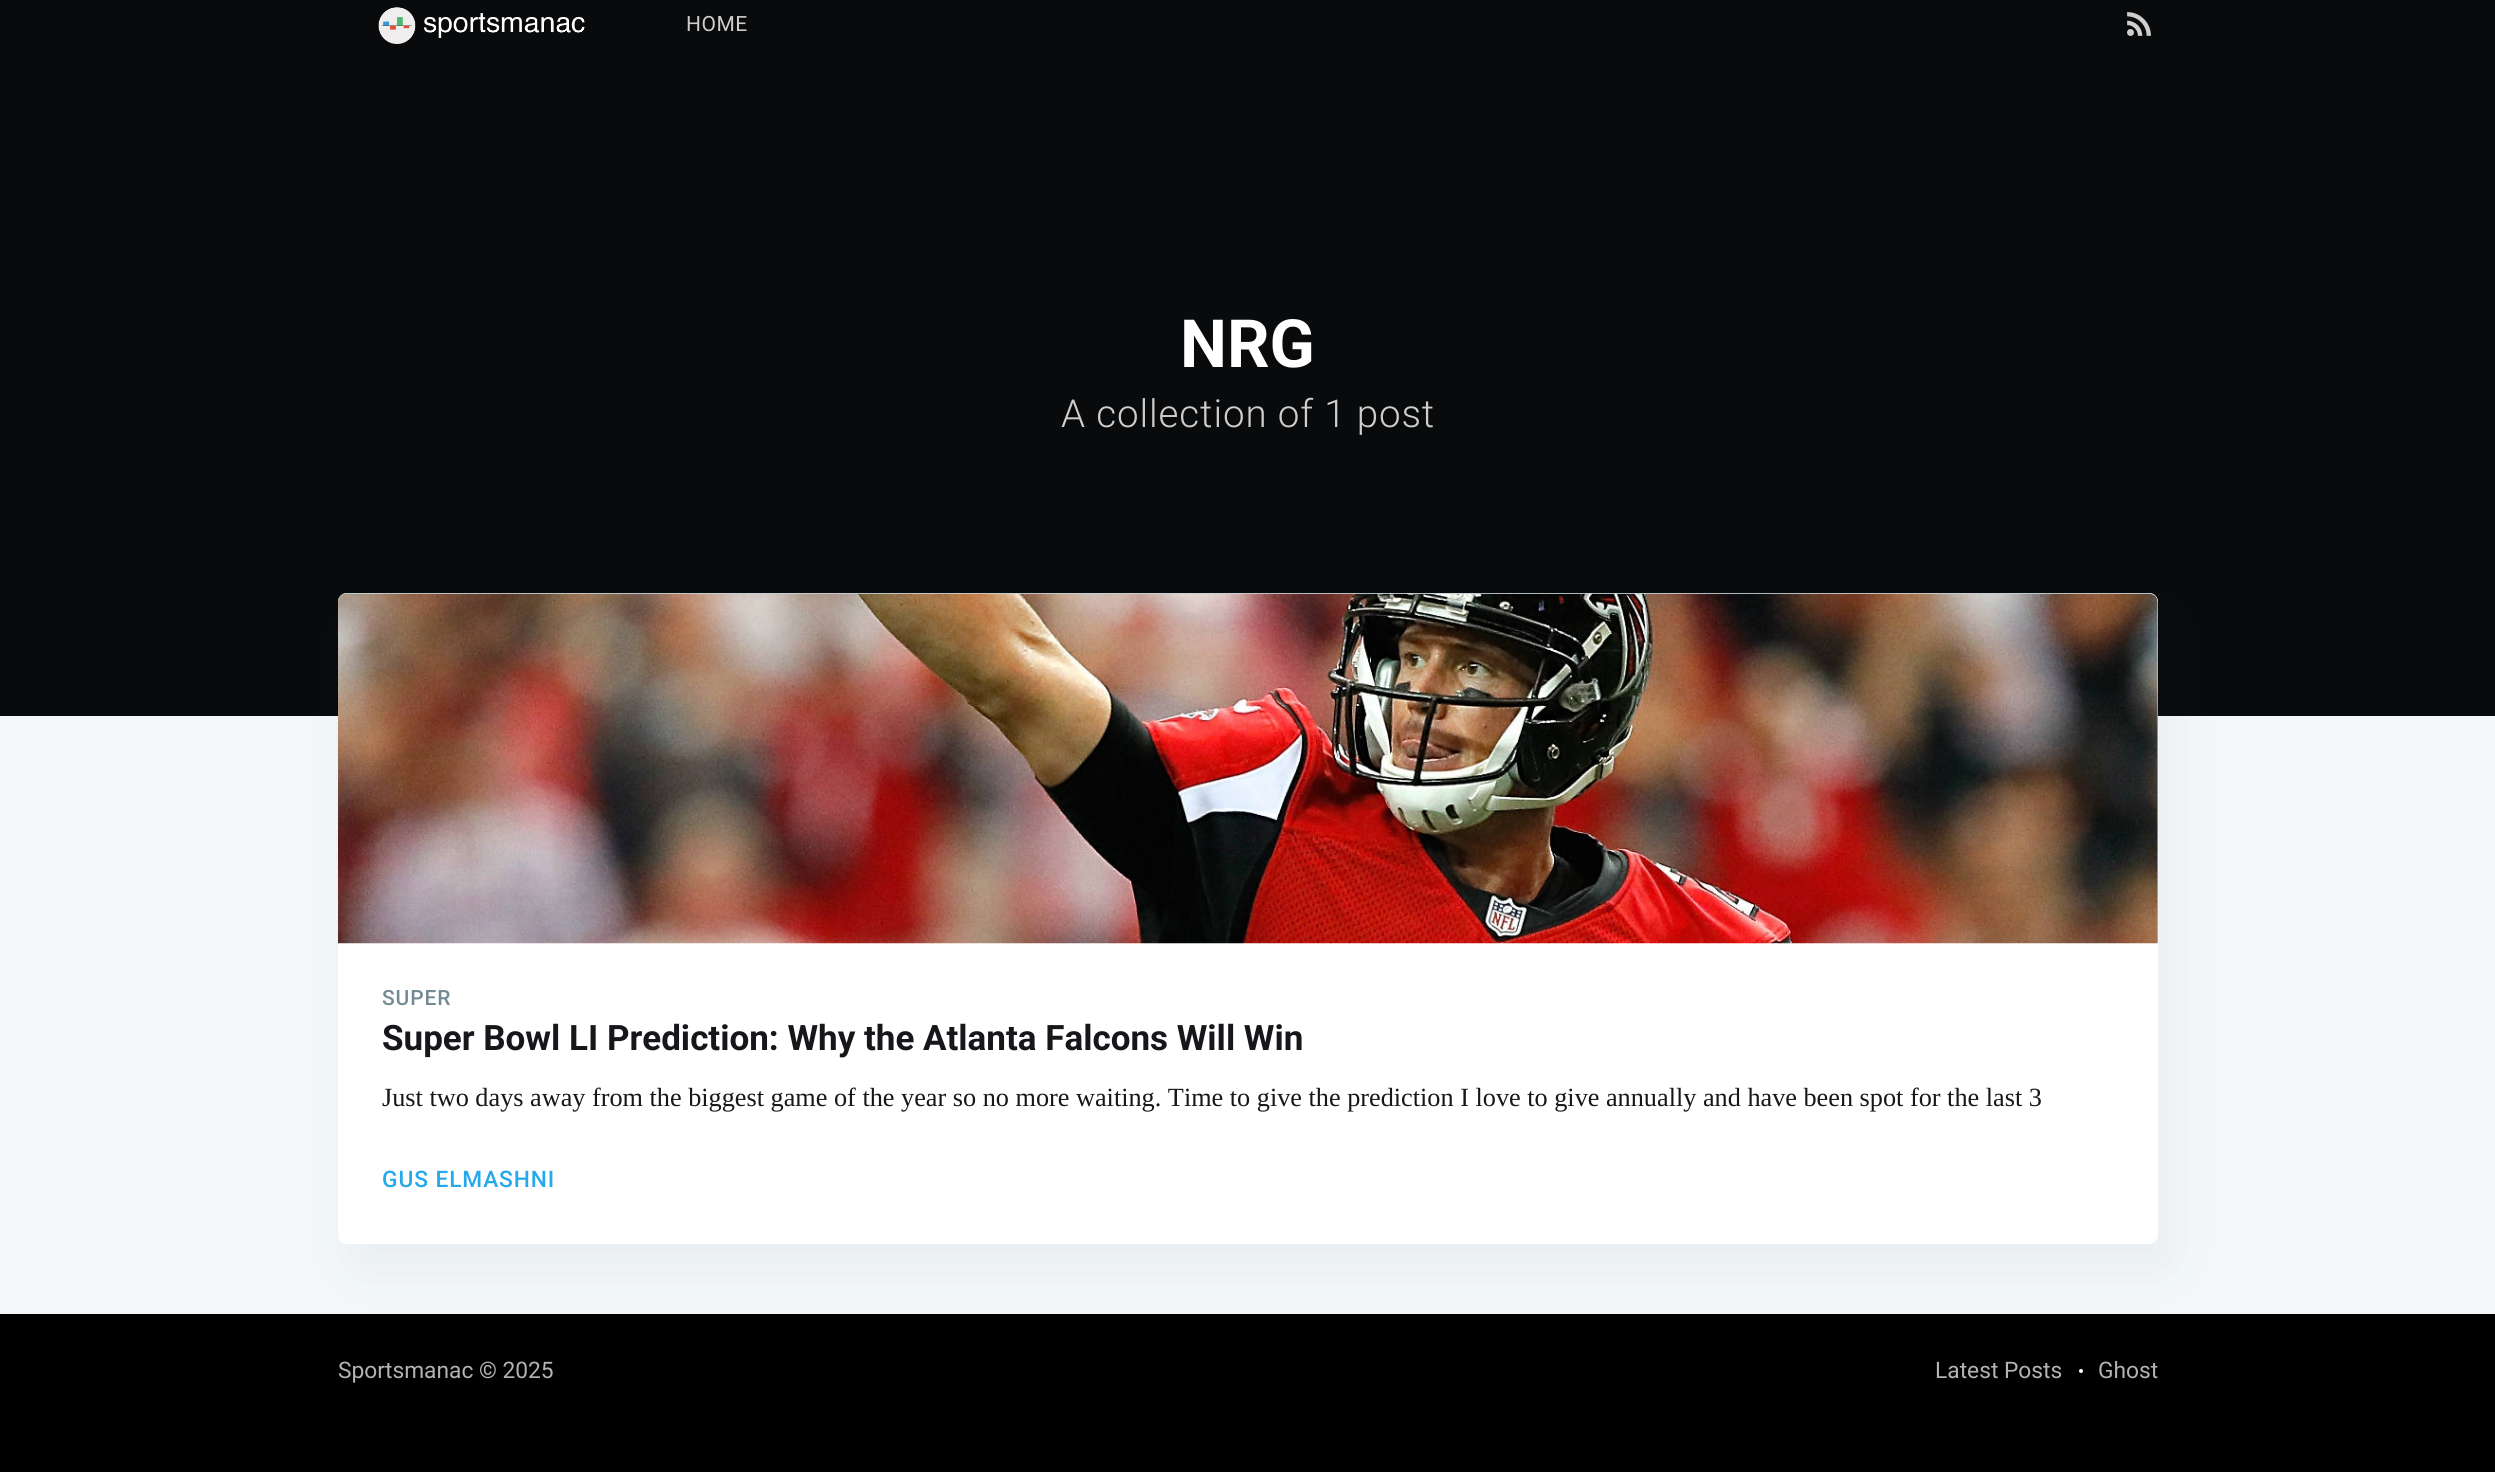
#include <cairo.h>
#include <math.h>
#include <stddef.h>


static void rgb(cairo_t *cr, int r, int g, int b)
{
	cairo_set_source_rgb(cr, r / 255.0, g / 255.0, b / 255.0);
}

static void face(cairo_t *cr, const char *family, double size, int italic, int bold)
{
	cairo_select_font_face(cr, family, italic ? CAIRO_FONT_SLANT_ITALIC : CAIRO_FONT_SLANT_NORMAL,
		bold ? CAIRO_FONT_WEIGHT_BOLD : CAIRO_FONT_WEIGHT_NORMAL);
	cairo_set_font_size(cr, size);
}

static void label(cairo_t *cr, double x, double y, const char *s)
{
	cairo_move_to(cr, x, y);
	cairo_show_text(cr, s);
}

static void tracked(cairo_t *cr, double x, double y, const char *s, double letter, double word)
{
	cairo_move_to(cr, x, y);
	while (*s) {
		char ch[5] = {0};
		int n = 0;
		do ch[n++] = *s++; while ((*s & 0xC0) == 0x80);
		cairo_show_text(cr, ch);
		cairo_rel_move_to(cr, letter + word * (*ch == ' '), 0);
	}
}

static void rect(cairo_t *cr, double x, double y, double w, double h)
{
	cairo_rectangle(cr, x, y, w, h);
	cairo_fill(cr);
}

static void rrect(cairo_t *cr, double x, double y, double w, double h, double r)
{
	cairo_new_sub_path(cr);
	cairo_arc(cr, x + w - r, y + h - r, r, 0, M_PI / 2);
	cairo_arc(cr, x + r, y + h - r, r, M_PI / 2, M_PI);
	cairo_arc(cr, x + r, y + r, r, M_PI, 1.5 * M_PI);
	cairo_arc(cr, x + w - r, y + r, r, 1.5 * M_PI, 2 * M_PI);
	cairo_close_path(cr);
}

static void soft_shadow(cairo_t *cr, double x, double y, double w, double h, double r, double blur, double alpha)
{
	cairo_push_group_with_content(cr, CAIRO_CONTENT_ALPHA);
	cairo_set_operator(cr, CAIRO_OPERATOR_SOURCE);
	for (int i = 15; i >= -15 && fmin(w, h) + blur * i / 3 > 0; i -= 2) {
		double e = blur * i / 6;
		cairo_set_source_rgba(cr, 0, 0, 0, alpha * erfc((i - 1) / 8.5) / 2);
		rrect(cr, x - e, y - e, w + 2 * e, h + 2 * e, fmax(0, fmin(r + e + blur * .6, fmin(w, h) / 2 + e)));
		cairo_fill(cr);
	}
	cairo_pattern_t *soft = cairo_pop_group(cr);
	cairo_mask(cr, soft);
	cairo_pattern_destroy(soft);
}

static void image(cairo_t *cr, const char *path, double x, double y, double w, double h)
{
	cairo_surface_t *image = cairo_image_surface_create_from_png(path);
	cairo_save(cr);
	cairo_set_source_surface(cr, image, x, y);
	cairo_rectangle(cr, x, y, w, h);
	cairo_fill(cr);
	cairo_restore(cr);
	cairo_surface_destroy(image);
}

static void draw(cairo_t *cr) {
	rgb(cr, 244, 248, 251);
	cairo_paint(cr);
	rgb(cr, 9, 10, 11);
	rect(cr, 0, 0, 2495, 716);
	image(cr, "image0.png", 378, 7, 207, 37);
	face(cr, "Roboto", 21, 0, 0);
	rgb(cr, 206, 206, 206);
	tracked(cr, 686, 31, "HOME", 0.5, 0);
	image(cr, "image1.png", 2127, 12, 24, 24);
	face(cr, "Roboto", 66.5, 0, 1);
	rgb(cr, 255, 255, 255);
	label(cr, 1180, 367, "NRG");
	face(cr, "Roboto Light", 38.5, 0, 0);
	rgb(cr, 206, 206, 206);
	tracked(cr, 1061, 427, "A collection of 1 post", 0.9, 0);
	rgb(cr, 0, 0, 0);
	rect(cr, 0, 1314, 2495, 158);
	rgb(cr, 39, 44, 49);
	soft_shadow(cr, 352, 618, 1820, 651, 9, 33, 0.06);
	rgb(cr, 255, 255, 255);
	rrect(cr, 338, 593, 1820, 651, 9);
	cairo_fill(cr);
	rgb(cr, 197, 210, 217);
	cairo_new_path(cr);
	cairo_move_to(cr, 347, 593);
	cairo_line_to(cr, 2149, 593);
	cairo_curve_to(cr, 2154, 593, 2158, 597, 2158, 602);
	cairo_line_to(cr, 2158, 943);
	cairo_line_to(cr, 338, 943);
	cairo_line_to(cr, 338, 602);
	cairo_curve_to(cr, 338, 597, 342, 593, 347, 593);
	cairo_close_path(cr);
	cairo_fill(cr);
	image(cr, "image2.png", 338, 593, 1820, 351);
	face(cr, "Roboto Medium", 21, 0, 0);
	rgb(cr, 115, 138, 148);
	tracked(cr, 382, 1005, "SUPER", 0.9, 0);
	face(cr, "Roboto", 35, 0, 1);
	rgb(cr, 21, 23, 26);
	label(cr, 382, 1050, "Super Bowl LI Prediction: Why the Atlanta Falcons Will Win");
	face(cr, "Liberation Serif", 26.25, 0, 0);
	label(cr, 382, 1106, "Just two days away from the biggest game of the year so no more waiting. Time to give the prediction I love to give annually and have been spot for the last 3");
	face(cr, "Roboto Medium", 22.75, 0, 0);
	rgb(cr, 38, 168, 237);
	tracked(cr, 382, 1187, "GUS ELMASHNI", 0.9, 0);
	face(cr, "Roboto", 22.75, 0, 0);
	rgb(cr, 179, 179, 179);
	label(cr, 338, 1378, "Sportsmanac © 2025");
	label(cr, 1935, 1378, "Latest Posts");
	rgb(cr, 255, 255, 255);
	cairo_new_path(cr);
	cairo_arc(cr, 2081, 1371, 2, 0, 2 * M_PI);
	cairo_fill(cr);
	rgb(cr, 179, 179, 179);
	label(cr, 2098, 1378, "Ghost");
}

int main(void) {
	cairo_surface_t *surface = cairo_image_surface_create(CAIRO_FORMAT_RGB24, 2495, 1472);
	cairo_t *cr = cairo_create(surface);
	cairo_font_options_t *options = cairo_font_options_create();
	cairo_font_options_set_hint_metrics(options, CAIRO_HINT_METRICS_OFF);
	cairo_font_options_set_hint_style(options, CAIRO_HINT_STYLE_NONE);
	cairo_set_font_options(cr, options);
	cairo_set_miter_limit(cr, 4);
	draw(cr);
	cairo_surface_write_to_png(surface, "render.png");
	cairo_font_options_destroy(options);
	cairo_destroy(cr);
	cairo_surface_destroy(surface);
	return 0;
}
